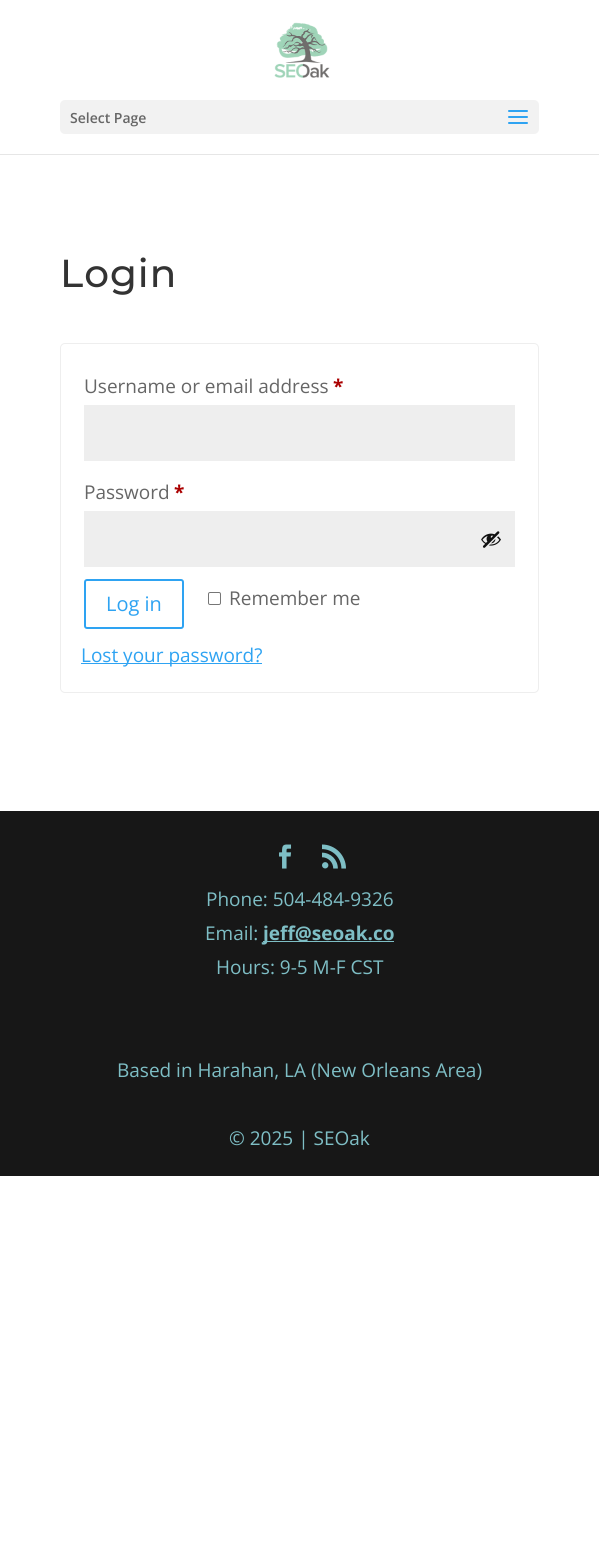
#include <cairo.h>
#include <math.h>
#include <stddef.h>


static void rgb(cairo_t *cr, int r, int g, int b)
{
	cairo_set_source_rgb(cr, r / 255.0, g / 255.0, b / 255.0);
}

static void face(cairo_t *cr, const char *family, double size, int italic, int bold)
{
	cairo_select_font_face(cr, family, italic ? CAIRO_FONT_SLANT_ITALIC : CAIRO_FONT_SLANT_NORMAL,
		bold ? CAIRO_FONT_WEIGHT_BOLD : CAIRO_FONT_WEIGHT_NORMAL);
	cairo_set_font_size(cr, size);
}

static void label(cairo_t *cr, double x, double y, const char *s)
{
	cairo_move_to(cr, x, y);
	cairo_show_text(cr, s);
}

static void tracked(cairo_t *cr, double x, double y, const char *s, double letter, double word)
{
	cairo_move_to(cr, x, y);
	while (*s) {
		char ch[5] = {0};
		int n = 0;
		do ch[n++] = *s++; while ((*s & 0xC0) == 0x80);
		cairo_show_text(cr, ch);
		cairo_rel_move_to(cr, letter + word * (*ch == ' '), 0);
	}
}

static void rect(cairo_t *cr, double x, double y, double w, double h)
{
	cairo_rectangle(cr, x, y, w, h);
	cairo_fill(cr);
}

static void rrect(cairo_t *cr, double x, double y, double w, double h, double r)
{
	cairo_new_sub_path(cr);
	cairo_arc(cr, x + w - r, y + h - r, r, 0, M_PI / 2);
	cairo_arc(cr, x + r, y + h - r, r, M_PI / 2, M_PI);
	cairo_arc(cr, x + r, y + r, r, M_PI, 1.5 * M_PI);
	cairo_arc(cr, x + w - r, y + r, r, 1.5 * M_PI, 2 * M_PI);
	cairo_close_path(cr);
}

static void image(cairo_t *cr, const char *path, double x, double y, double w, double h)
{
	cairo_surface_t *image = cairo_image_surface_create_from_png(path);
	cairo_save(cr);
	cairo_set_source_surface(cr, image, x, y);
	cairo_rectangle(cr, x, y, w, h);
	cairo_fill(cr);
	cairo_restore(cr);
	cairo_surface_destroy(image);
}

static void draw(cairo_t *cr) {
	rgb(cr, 255, 255, 255);
	cairo_paint(cr);
	rgb(cr, 230, 230, 230);
	rect(cr, 0, 154, 599, 1);
	image(cr, "image0.png", 274, 22, 56, 56);
	rgb(cr, 242, 242, 242);
	rrect(cr, 60, 100, 479, 34, 5);
	cairo_fill(cr);
	face(cr, "Open Sans SemiBold", 14, 0, 0);
	rgb(cr, 102, 102, 102);
	label(cr, 70, 123, "Select Page");
	image(cr, "image1.png", 508, 110, 20, 14);
	face(cr, "Montserrat Medium", 39, 0, 0);
	rgb(cr, 51, 51, 51);
	tracked(cr, 60, 287, "Login", 1, 0);
	rrect(cr, 60.5, 343.5, 478, 349, 4.5);
	rgb(cr, 238, 238, 238);
	cairo_set_line_width(cr, 1);
	cairo_stroke(cr);
	face(cr, "Open Sans", 19, 0, 0);
	rgb(cr, 102, 102, 102);
	label(cr, 84, 393, "Username or email address");
	face(cr, "Open Sans", 19, 0, 1);
	rgb(cr, 170, 0, 0);
	label(cr, 333, 393, "*");
	rgb(cr, 238, 238, 238);
	rect(cr, 84, 405, 431, 56);
	face(cr, "Open Sans", 19, 0, 0);
	rgb(cr, 102, 102, 102);
	label(cr, 84, 499, "Password");
	face(cr, "Open Sans", 19, 0, 1);
	rgb(cr, 170, 0, 0);
	label(cr, 174, 499, "*");
	rgb(cr, 238, 238, 238);
	rect(cr, 84, 511, 431, 56);
	image(cr, "image2.png", 481, 531, 20, 17);
	rrect(cr, 85, 580, 98, 48, 2);
	rgb(cr, 46, 163, 242);
	cairo_set_line_width(cr, 2);
	cairo_stroke(cr);
	face(cr, "Open Sans", 20, 0, 0);
	label(cr, 106, 611, "Log in");
	rrect(cr, 208.5, 592.5, 12, 12, 1.5);
	rgb(cr, 118, 118, 118);
	cairo_set_line_width(cr, 1);
	cairo_stroke(cr);
	face(cr, "Open Sans", 19, 0, 0);
	rgb(cr, 102, 102, 102);
	label(cr, 229, 605, "Remember me");
	rgb(cr, 46, 163, 242);
	rect(cr, 81, 663, 181, 1);
	label(cr, 81, 662, "Lost your password?");
	rgb(cr, 23, 23, 23);
	rect(cr, 0, 811, 599, 365);
	image(cr, "image3.png", 279, 844, 13, 25);
	image(cr, "image4.png", 322, 844, 24, 25);
	rgb(cr, 126, 190, 197);
	label(cr, 206, 906, "Phone: 504-484-9326");
	label(cr, 205, 940, "Email:");
	rect(cr, 263, 941, 131, 1);
	face(cr, "Open Sans", 19, 0, 1);
	label(cr, 263, 940, "jeff@seoak.co");
	face(cr, "Open Sans", 19, 0, 0);
	label(cr, 216, 974, "Hours: 9-5 M-F CST");
	label(cr, 117, 1077, "Based in Harahan, LA (New Orleans Area)");
	label(cr, 229, 1145, "© 2025 | SEOak");
}

int main(void) {
	cairo_surface_t *surface = cairo_image_surface_create(CAIRO_FORMAT_RGB24, 599, 1560);
	cairo_t *cr = cairo_create(surface);
	cairo_font_options_t *options = cairo_font_options_create();
	cairo_font_options_set_hint_metrics(options, CAIRO_HINT_METRICS_OFF);
	cairo_font_options_set_hint_style(options, CAIRO_HINT_STYLE_NONE);
	cairo_set_font_options(cr, options);
	cairo_set_miter_limit(cr, 4);
	draw(cr);
	cairo_surface_write_to_png(surface, "render.png");
	cairo_font_options_destroy(options);
	cairo_destroy(cr);
	cairo_surface_destroy(surface);
	return 0;
}
